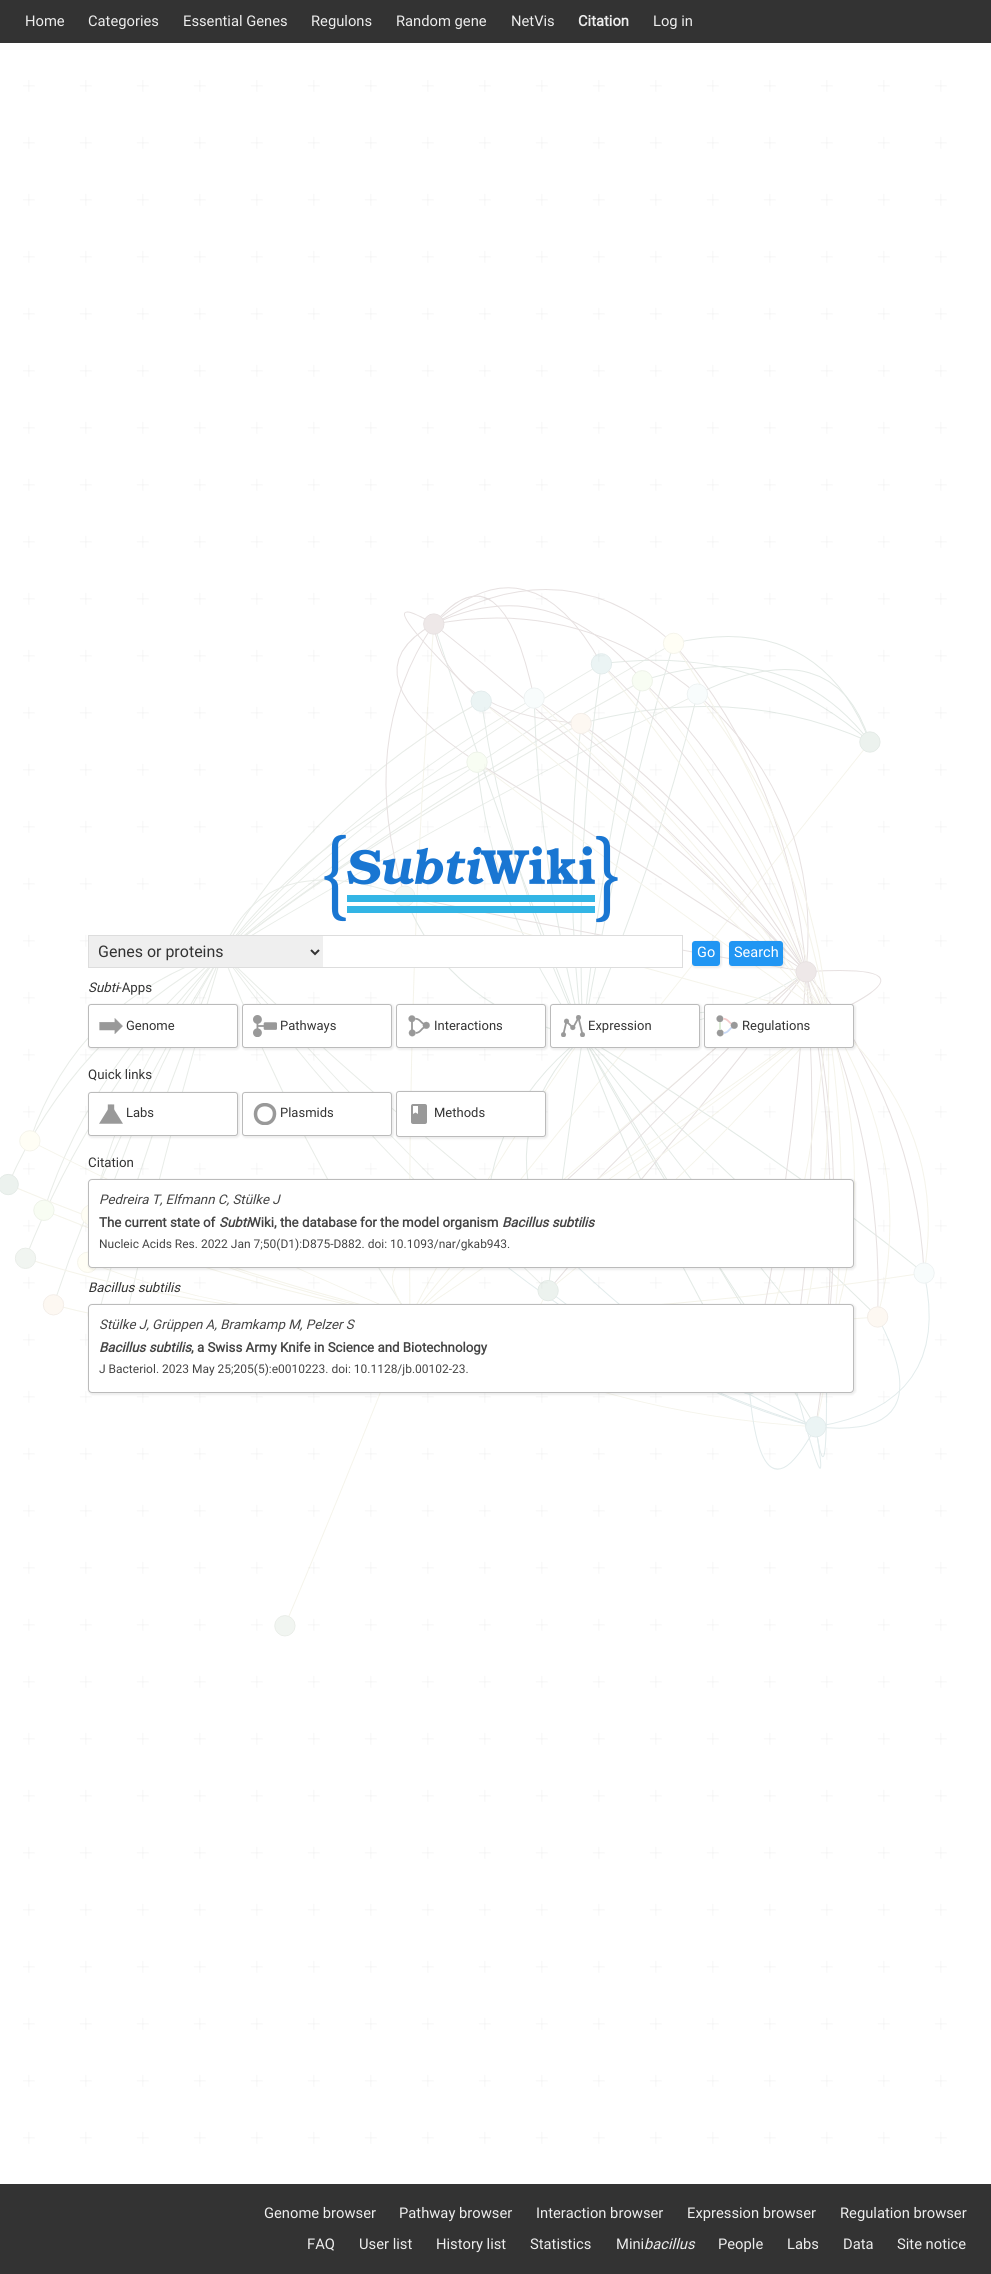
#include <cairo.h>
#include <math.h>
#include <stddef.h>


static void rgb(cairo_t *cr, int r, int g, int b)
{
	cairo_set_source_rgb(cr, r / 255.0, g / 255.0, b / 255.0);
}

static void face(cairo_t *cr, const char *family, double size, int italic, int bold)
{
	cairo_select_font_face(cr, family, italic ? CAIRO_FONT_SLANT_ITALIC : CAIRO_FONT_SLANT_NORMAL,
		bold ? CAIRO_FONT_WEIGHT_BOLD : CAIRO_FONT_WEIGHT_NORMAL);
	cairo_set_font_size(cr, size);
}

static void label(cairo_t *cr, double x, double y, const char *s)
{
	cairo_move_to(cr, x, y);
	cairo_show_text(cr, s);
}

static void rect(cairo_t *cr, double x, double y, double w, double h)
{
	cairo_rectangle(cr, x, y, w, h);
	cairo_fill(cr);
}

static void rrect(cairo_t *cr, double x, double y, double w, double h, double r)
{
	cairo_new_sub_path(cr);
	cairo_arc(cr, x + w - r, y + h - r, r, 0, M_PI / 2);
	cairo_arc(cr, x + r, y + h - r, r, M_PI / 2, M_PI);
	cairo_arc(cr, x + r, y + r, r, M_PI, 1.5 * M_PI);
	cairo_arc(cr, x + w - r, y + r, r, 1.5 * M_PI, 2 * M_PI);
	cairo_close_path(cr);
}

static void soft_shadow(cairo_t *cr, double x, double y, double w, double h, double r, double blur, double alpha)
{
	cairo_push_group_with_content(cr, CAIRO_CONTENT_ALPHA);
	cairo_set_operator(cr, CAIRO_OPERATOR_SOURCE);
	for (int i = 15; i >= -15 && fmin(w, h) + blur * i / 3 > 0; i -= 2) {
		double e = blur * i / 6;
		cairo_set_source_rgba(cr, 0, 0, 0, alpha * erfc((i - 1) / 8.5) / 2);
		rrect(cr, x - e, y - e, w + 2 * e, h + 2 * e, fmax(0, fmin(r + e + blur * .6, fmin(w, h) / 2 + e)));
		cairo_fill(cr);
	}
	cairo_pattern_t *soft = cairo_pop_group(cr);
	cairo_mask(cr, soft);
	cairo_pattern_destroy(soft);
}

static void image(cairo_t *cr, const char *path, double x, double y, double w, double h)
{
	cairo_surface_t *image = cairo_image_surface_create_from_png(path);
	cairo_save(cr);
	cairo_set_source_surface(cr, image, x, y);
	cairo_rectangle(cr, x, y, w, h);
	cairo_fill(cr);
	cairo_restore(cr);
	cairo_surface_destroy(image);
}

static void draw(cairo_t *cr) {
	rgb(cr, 255, 255, 255);
	cairo_paint(cr);
	image(cr, "image0.png", 23, 80, 924, 2064);
	rgb(cr, 51, 51, 51);
	rect(cr, 0, 0, 991, 43);
	face(cr, "Roboto", 14.75, 0, 0);
	rgb(cr, 238, 238, 238);
	label(cr, 25, 26, "Home");
	label(cr, 88, 26, "Categories");
	label(cr, 183, 26, "Essential Genes");
	label(cr, 311, 26, "Regulons");
	label(cr, 396, 26, "Random gene");
	label(cr, 511, 26, "NetVis");
	face(cr, "Roboto", 14.75, 0, 1);
	label(cr, 578, 26, "Citation");
	face(cr, "Roboto", 14.75, 0, 0);
	label(cr, 653, 26, "Log in");
	image(cr, "image1.png", 0, 587, 935, 1050);
	image(cr, "image2.png", 324, 834, 294, 89);
	rgb(cr, 255, 255, 255);
	rect(cr, 365, 936, 317, 31);
	cairo_rectangle(cr, 88.5, 935.5, 594, 32);
	rgb(cr, 221, 221, 221);
	cairo_set_line_width(cr, 1);
	cairo_stroke(cr);
	rgb(cr, 239, 239, 239);
	rect(cr, 89, 936, 234, 31);
	cairo_new_path(cr);
	cairo_move_to(cr, 311, 950);
	cairo_line_to(cr, 315, 954);
	cairo_line_to(cr, 319, 950);
	rgb(cr, 51, 51, 51);
	cairo_set_line_width(cr, 2);
	cairo_stroke(cr);
	face(cr, "Roboto", 16, 0, 0);
	label(cr, 98, 957, "Genes or proteins");
	rgb(cr, 0, 0, 0);
	soft_shadow(cr, 692, 941, 30, 27, 4, 1, 0.07);
	rgb(cr, 33, 150, 243);
	rrect(cr, 692, 941, 28, 25, 3);
	cairo_fill(cr);
	face(cr, "Roboto", 14.5, 0, 0);
	rgb(cr, 255, 255, 255);
	label(cr, 697, 957, "Go");
	rgb(cr, 0, 0, 0);
	soft_shadow(cr, 729, 941, 56, 27, 4, 1, 0.07);
	rgb(cr, 33, 150, 243);
	rrect(cr, 729, 941, 54, 25, 3);
	cairo_fill(cr);
	rgb(cr, 255, 255, 255);
	label(cr, 734, 957, "Search");
	face(cr, "Roboto", 13.3, 1, 0);
	rgb(cr, 51, 51, 51);
	label(cr, 88, 992, "Subti");
	face(cr, "Roboto", 13.3, 0, 0);
	label(cr, 118, 992, "-Apps");
	rgb(cr, 0, 0, 0);
	soft_shadow(cr, 88, 1004, 152, 46, 4, 1, 0.07);
	rgb(cr, 255, 255, 255);
	rrect(cr, 88.5, 1004.5, 149, 43, 2.5);
	cairo_fill_preserve(cr);
	rgb(cr, 187, 187, 187);
	cairo_set_line_width(cr, 1);
	cairo_stroke(cr);
	image(cr, "image3.png", 99, 1018, 24, 16);
	face(cr, "Roboto", 13, 0, 0);
	rgb(cr, 51, 51, 51);
	label(cr, 126, 1030, "Genome");
	rgb(cr, 0, 0, 0);
	soft_shadow(cr, 242, 1004, 152, 46, 4, 1, 0.07);
	rgb(cr, 255, 255, 255);
	rrect(cr, 242.5, 1004.5, 149, 43, 2.5);
	cairo_fill_preserve(cr);
	rgb(cr, 187, 187, 187);
	cairo_stroke(cr);
	image(cr, "image4.png", 253, 1015, 24, 22);
	rgb(cr, 51, 51, 51);
	label(cr, 280, 1030, "Pathways");
	rgb(cr, 0, 0, 0);
	soft_shadow(cr, 396, 1004, 152, 46, 4, 1, 0.07);
	rgb(cr, 255, 255, 255);
	rrect(cr, 396.5, 1004.5, 149, 43, 2.5);
	cairo_fill_preserve(cr);
	rgb(cr, 187, 187, 187);
	cairo_stroke(cr);
	image(cr, "image5.png", 408, 1015, 22, 22);
	rgb(cr, 51, 51, 51);
	label(cr, 434, 1030, "Interactions");
	rgb(cr, 0, 0, 0);
	soft_shadow(cr, 550, 1004, 152, 46, 4, 1, 0.07);
	rgb(cr, 255, 255, 255);
	rrect(cr, 550.5, 1004.5, 149, 43, 2.5);
	cairo_fill_preserve(cr);
	rgb(cr, 187, 187, 187);
	cairo_stroke(cr);
	image(cr, "image6.png", 561, 1015, 24, 22);
	rgb(cr, 51, 51, 51);
	label(cr, 588, 1030, "Expression");
	rgb(cr, 0, 0, 0);
	soft_shadow(cr, 704, 1004, 152, 46, 4, 1, 0.07);
	rgb(cr, 255, 255, 255);
	rrect(cr, 704.5, 1004.5, 149, 43, 2.5);
	cairo_fill_preserve(cr);
	rgb(cr, 187, 187, 187);
	cairo_stroke(cr);
	image(cr, "image7.png", 716, 1015, 22, 22);
	rgb(cr, 51, 51, 51);
	label(cr, 742, 1030, "Regulations");
	face(cr, "Roboto", 13.3, 0, 0);
	label(cr, 88, 1079, "Quick links");
	rgb(cr, 0, 0, 0);
	soft_shadow(cr, 88, 1092, 152, 46, 4, 1, 0.07);
	rgb(cr, 255, 255, 255);
	rrect(cr, 88.5, 1092.5, 149, 43, 2.5);
	cairo_fill_preserve(cr);
	rgb(cr, 187, 187, 187);
	cairo_stroke(cr);
	image(cr, "image8.png", 99, 1104, 24, 20);
	face(cr, "Roboto", 13, 0, 0);
	rgb(cr, 51, 51, 51);
	label(cr, 126, 1117, "Labs");
	rgb(cr, 0, 0, 0);
	soft_shadow(cr, 242, 1092, 152, 46, 4, 1, 0.07);
	rgb(cr, 255, 255, 255);
	rrect(cr, 242.5, 1092.5, 149, 43, 2.5);
	cairo_fill_preserve(cr);
	rgb(cr, 187, 187, 187);
	cairo_stroke(cr);
	cairo_save(cr);
	cairo_new_path(cr);
	cairo_move_to(cr, 253, 1103);
	cairo_line_to(cr, 277, 1103);
	cairo_line_to(cr, 277, 1125);
	cairo_line_to(cr, 253, 1125);
	cairo_close_path(cr);
	cairo_clip(cr);
	cairo_new_path(cr);
	cairo_move_to(cr, 255.5, 1114);
	cairo_curve_to(cr, 255.5, 1101, 275, 1102, 274.5, 1114);
	cairo_curve_to(cr, 274, 1127, 255.5, 1126.5, 255.5, 1114);
	cairo_close_path(cr);
	rgb(cr, 153, 153, 153);
	cairo_set_line_width(cr, 3.5);
	cairo_set_line_join(cr, CAIRO_LINE_JOIN_ROUND);
	cairo_stroke(cr);
	cairo_restore(cr);
	rgb(cr, 51, 51, 51);
	label(cr, 280, 1117, "Plasmids");
	rgb(cr, 0, 0, 0);
	soft_shadow(cr, 396, 1091, 152, 48, 4, 1, 0.07);
	rgb(cr, 255, 255, 255);
	rrect(cr, 396.5, 1091.5, 149, 45, 2.5);
	cairo_fill_preserve(cr);
	rgb(cr, 187, 187, 187);
	cairo_stroke(cr);
	image(cr, "image9.png", 411, 1104, 16, 20);
	rgb(cr, 51, 51, 51);
	label(cr, 434, 1117, "Methods");
	face(cr, "Roboto", 13.3, 0, 0);
	label(cr, 88, 1167, "Citation");
	rgb(cr, 0, 0, 0);
	soft_shadow(cr, 88, 1179, 768, 91, 5, 1, 0.07);
	rgb(cr, 255, 255, 255);
	rrect(cr, 88.5, 1179.5, 765, 88, 3.5);
	cairo_fill_preserve(cr);
	rgb(cr, 187, 187, 187);
	cairo_stroke(cr);
	face(cr, "Roboto", 13.3, 1, 0);
	rgb(cr, 68, 68, 68);
	label(cr, 99, 1204, "Pedreira T, Elfmann C, Stülke J");
	face(cr, "Roboto", 13.3, 0, 1);
	label(cr, 99, 1227, "The current state of");
	face(cr, "Roboto", 13.3, 1, 1);
	label(cr, 219, 1227, "Subti");
	face(cr, "Roboto", 13.3, 0, 1);
	label(cr, 249, 1227, "Wiki, the database for the model organism");
	face(cr, "Roboto", 13.3, 1, 1);
	label(cr, 502, 1227, "Bacillus subtilis");
	face(cr, "Roboto", 12, 0, 0);
	label(cr, 99, 1248, "Nucleic Acids Res. 2022 Jan 7;50(D1):D875-D882. doi: 10.1093/nar/gkab943.");
	face(cr, "Roboto", 13.3, 1, 0);
	rgb(cr, 51, 51, 51);
	label(cr, 88, 1292, "Bacillus subtilis");
	rgb(cr, 0, 0, 0);
	soft_shadow(cr, 88, 1304, 768, 91, 5, 1, 0.07);
	rgb(cr, 255, 255, 255);
	rrect(cr, 88.5, 1304.5, 765, 88, 3.5);
	cairo_fill_preserve(cr);
	rgb(cr, 187, 187, 187);
	cairo_stroke(cr);
	rgb(cr, 68, 68, 68);
	label(cr, 99, 1329, "Stülke J, Grüppen A, Bramkamp M, Pelzer S");
	face(cr, "Roboto", 13.3, 1, 1);
	label(cr, 99, 1352, "Bacillus subtilis");
	face(cr, "Roboto", 13.3, 0, 1);
	label(cr, 191, 1352, ", a Swiss Army Knife in Science and Biotechnology");
	face(cr, "Roboto", 12, 0, 0);
	label(cr, 99, 1373, "J Bacteriol. 2023 May 25;205(5):e0010223. doi: 10.1128/jb.00102-23.");
	rgb(cr, 51, 51, 51);
	rect(cr, 0, 2184, 991, 90);
	face(cr, "Roboto", 14.75, 0, 0);
	rgb(cr, 238, 238, 238);
	label(cr, 264, 2218, "Genome browser");
	label(cr, 399, 2218, "Pathway browser");
	label(cr, 536, 2218, "Interaction browser");
	label(cr, 687, 2218, "Expression browser");
	label(cr, 840, 2218, "Regulation browser");
	label(cr, 307, 2249, "FAQ");
	label(cr, 359, 2249, "User list");
	label(cr, 436, 2249, "History list");
	label(cr, 530, 2249, "Statistics");
	label(cr, 616, 2249, "Mini");
	face(cr, "Roboto", 14.75, 1, 0);
	label(cr, 644, 2249, "bacillus");
	face(cr, "Roboto", 14.75, 0, 0);
	label(cr, 718, 2249, "People");
	label(cr, 787, 2249, "Labs");
	label(cr, 843, 2249, "Data");
	label(cr, 897, 2249, "Site notice");
}

int main(void) {
	cairo_surface_t *surface = cairo_image_surface_create(CAIRO_FORMAT_RGB24, 991, 2274);
	cairo_t *cr = cairo_create(surface);
	cairo_font_options_t *options = cairo_font_options_create();
	cairo_font_options_set_hint_metrics(options, CAIRO_HINT_METRICS_OFF);
	cairo_font_options_set_hint_style(options, CAIRO_HINT_STYLE_NONE);
	cairo_set_font_options(cr, options);
	cairo_set_miter_limit(cr, 4);
	draw(cr);
	cairo_surface_write_to_png(surface, "render.png");
	cairo_font_options_destroy(options);
	cairo_destroy(cr);
	cairo_surface_destroy(surface);
	return 0;
}
